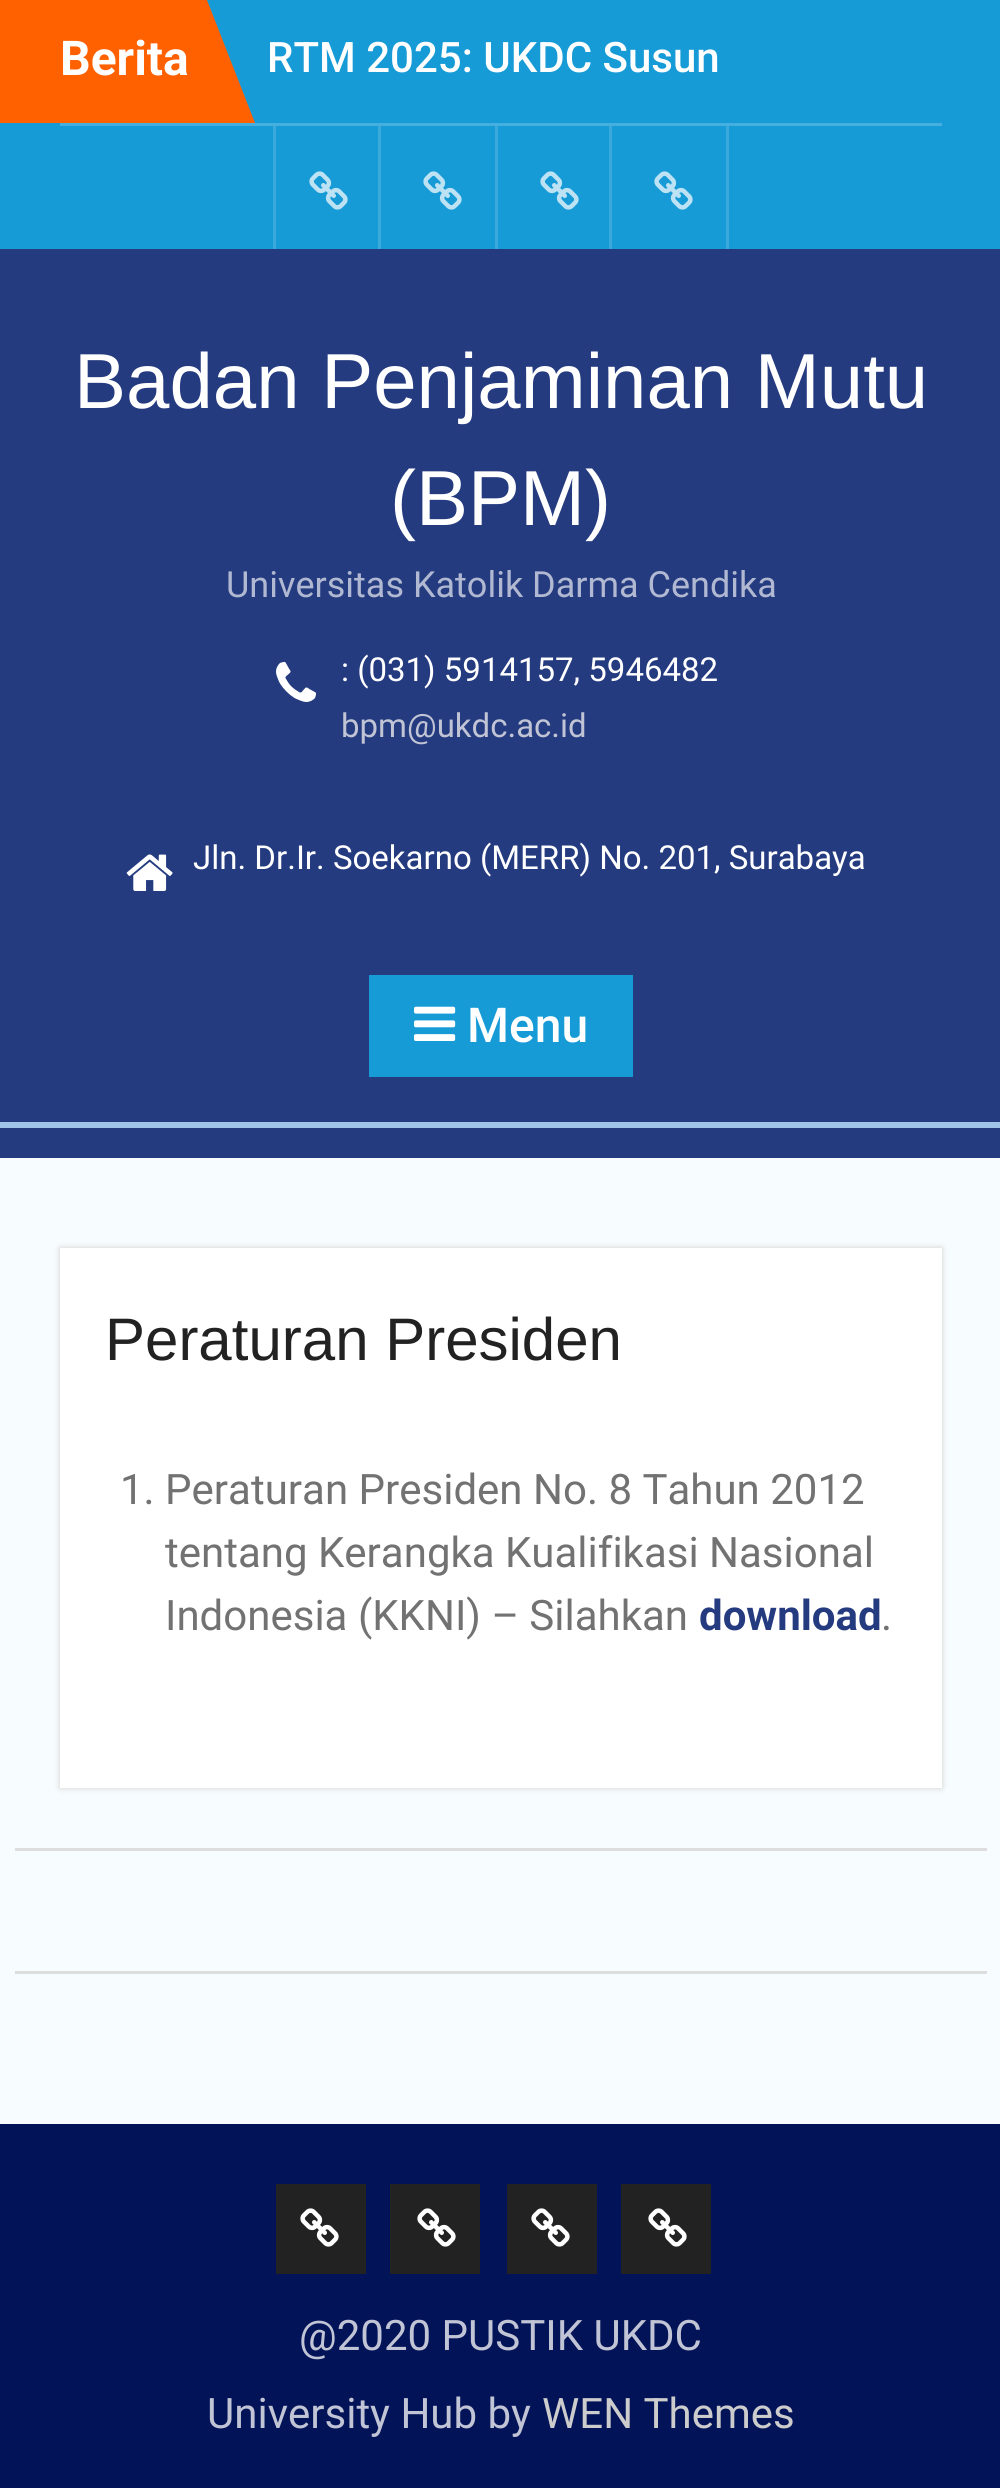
#include <cairo.h>
#include <math.h>
#include <stddef.h>


static void rgb(cairo_t *cr, int r, int g, int b)
{
	cairo_set_source_rgb(cr, r / 255.0, g / 255.0, b / 255.0);
}

static void face(cairo_t *cr, const char *family, double size, int italic, int bold)
{
	cairo_select_font_face(cr, family, italic ? CAIRO_FONT_SLANT_ITALIC : CAIRO_FONT_SLANT_NORMAL,
		bold ? CAIRO_FONT_WEIGHT_BOLD : CAIRO_FONT_WEIGHT_NORMAL);
	cairo_set_font_size(cr, size);
}

static void label(cairo_t *cr, double x, double y, const char *s)
{
	cairo_move_to(cr, x, y);
	cairo_show_text(cr, s);
}

static void rect(cairo_t *cr, double x, double y, double w, double h)
{
	cairo_rectangle(cr, x, y, w, h);
	cairo_fill(cr);
}

static void rrect(cairo_t *cr, double x, double y, double w, double h, double r)
{
	cairo_new_sub_path(cr);
	cairo_arc(cr, x + w - r, y + h - r, r, 0, M_PI / 2);
	cairo_arc(cr, x + r, y + h - r, r, M_PI / 2, M_PI);
	cairo_arc(cr, x + r, y + r, r, M_PI, 1.5 * M_PI);
	cairo_arc(cr, x + w - r, y + r, r, 1.5 * M_PI, 2 * M_PI);
	cairo_close_path(cr);
}

static void soft_shadow(cairo_t *cr, double x, double y, double w, double h, double r, double blur, double alpha)
{
	cairo_push_group_with_content(cr, CAIRO_CONTENT_ALPHA);
	cairo_set_operator(cr, CAIRO_OPERATOR_SOURCE);
	for (int i = 15; i >= -15 && fmin(w, h) + blur * i / 3 > 0; i -= 2) {
		double e = blur * i / 6;
		cairo_set_source_rgba(cr, 0, 0, 0, alpha * erfc((i - 1) / 8.5) / 2);
		rrect(cr, x - e, y - e, w + 2 * e, h + 2 * e, fmax(0, fmin(r + e + blur * .6, fmin(w, h) / 2 + e)));
		cairo_fill(cr);
	}
	cairo_pattern_t *soft = cairo_pop_group(cr);
	cairo_mask(cr, soft);
	cairo_pattern_destroy(soft);
}

static void image(cairo_t *cr, const char *path, double x, double y, double w, double h)
{
	cairo_surface_t *image = cairo_image_surface_create_from_png(path);
	cairo_save(cr);
	cairo_set_source_surface(cr, image, x, y);
	cairo_rectangle(cr, x, y, w, h);
	cairo_fill(cr);
	cairo_restore(cr);
	cairo_surface_destroy(image);
}

static void draw(cairo_t *cr) {
	rgb(cr, 247, 252, 254);
	cairo_paint(cr);
	rgb(cr, 23, 155, 215);
	rect(cr, 0, 0, 1000, 249);
	rgb(cr, 255, 96, 0);
	rect(cr, 0, 0, 207, 123);
	face(cr, "Roboto", 48, 0, 1);
	rgb(cr, 255, 255, 255);
	label(cr, 60, 75, "Berita");
	rgb(cr, 255, 96, 0);
	cairo_new_path(cr);
	cairo_move_to(cr, 207, 123);
	cairo_line_to(cr, 207, 0);
	cairo_line_to(cr, 255, 123);
	cairo_close_path(cr);
	cairo_fill(cr);
	face(cr, "Roboto Medium", 42, 0, 0);
	rgb(cr, 255, 255, 255);
	label(cr, 267, 72, "RTM 2025: UKDC Susun");
	rgb(cr, 69, 175, 223);
	rect(cr, 60, 123, 882, 3);
	rgb(cr, 58, 170, 221);
	rect(cr, 378, 126, 3, 123);
	rect(cr, 273, 126, 3, 123);
	image(cr, "image0.png", 309, 171, 39, 39);
	rect(cr, 495, 126, 3, 123);
	image(cr, "image0.png", 423, 171, 39, 39);
	rect(cr, 609, 126, 3, 123);
	image(cr, "image0.png", 540, 171, 39, 39);
	rect(cr, 726, 126, 3, 123);
	image(cr, "image0.png", 654, 171, 39, 39);
	rgb(cr, 37, 59, 128);
	rect(cr, 0, 249, 1000, 873);
	face(cr, "Liberation Sans", 78, 0, 0);
	rgb(cr, 255, 255, 255);
	label(cr, 74, 408, "Badan Penjaminan Mutu");
	label(cr, 390, 525, "(BPM)");
	face(cr, "Roboto", 36, 0, 0);
	rgb(cr, 177, 184, 209);
	label(cr, 226, 597, "Universitas Katolik Darma Cendika");
	image(cr, "image1.png", 276, 661, 41, 41);
	face(cr, "Roboto", 33, 0, 0);
	rgb(cr, 255, 255, 255);
	label(cr, 341, 681, ": (031) 5914157, 5946482");
	rgb(cr, 192, 196, 213);
	label(cr, 341, 737, "bpm@ukdc.ac.id");
	image(cr, "image2.png", 126, 854, 47, 37);
	rgb(cr, 255, 255, 255);
	label(cr, 193, 869, "Jln. Dr.Ir. Soekarno (MERR) No. 201, Surabaya");
	rgb(cr, 23, 155, 215);
	rect(cr, 369, 975, 264, 102);
	image(cr, "image3.png", 414, 1006, 42, 35);
	face(cr, "Roboto Medium", 48, 0, 0);
	rgb(cr, 255, 255, 255);
	label(cr, 467, 1042, "Menu");
	rgb(cr, 37, 59, 128);
	rect(cr, 0, 1128, 1000, 30);
	rgb(cr, 160, 197, 232);
	rect(cr, 0, 1122, 1000, 6);
	rgb(cr, 221, 221, 221);
	rect(cr, 15, 1848, 972, 3);
	rgb(cr, 207, 207, 207);
	soft_shadow(cr, 60, 1248, 882, 540, 0, 3, 1);
	rgb(cr, 255, 255, 255);
	rect(cr, 60, 1248, 882, 540);
	face(cr, "Liberation Sans", 60, 0, 0);
	rgb(cr, 34, 34, 34);
	label(cr, 105, 1360, "Peraturan Presiden");
	face(cr, "Roboto", 42, 0, 0);
	rgb(cr, 114, 114, 114);
	label(cr, 120, 1504, "1. Peraturan Presiden No. 8 Tahun 2012");
	label(cr, 165, 1567, "tentang Kerangka Kualifikasi Nasional");
	label(cr, 165, 1630, "Indonesia (KKNI) – Silahkan");
	face(cr, "Roboto", 42, 0, 1);
	rgb(cr, 37, 59, 128);
	label(cr, 699, 1630, "download");
	face(cr, "Roboto", 42, 0, 0);
	rgb(cr, 114, 114, 114);
	label(cr, 881, 1630, ".");
	rgb(cr, 221, 221, 221);
	rect(cr, 15, 1971, 972, 3);
	rgb(cr, 3, 19, 88);
	rect(cr, 0, 2124, 1000, 364);
	rgb(cr, 34, 34, 34);
	rect(cr, 276, 2184, 90, 90);
	image(cr, "image4.png", 300, 2208, 39, 39);
	rect(cr, 390, 2184, 90, 90);
	image(cr, "image4.png", 417, 2208, 39, 39);
	rect(cr, 507, 2184, 90, 90);
	image(cr, "image4.png", 531, 2208, 39, 39);
	rect(cr, 621, 2184, 90, 90);
	image(cr, "image4.png", 648, 2208, 39, 39);
	rgb(cr, 192, 196, 213);
	label(cr, 299, 2350, "@2020 PUSTIK UKDC");
	label(cr, 207, 2428, "University Hub by");
	rgb(cr, 204, 204, 204);
	label(cr, 542, 2428, "WEN Themes");
}

int main(void) {
	cairo_surface_t *surface = cairo_image_surface_create(CAIRO_FORMAT_RGB24, 1000, 2488);
	cairo_t *cr = cairo_create(surface);
	cairo_font_options_t *options = cairo_font_options_create();
	cairo_font_options_set_hint_metrics(options, CAIRO_HINT_METRICS_OFF);
	cairo_font_options_set_hint_style(options, CAIRO_HINT_STYLE_NONE);
	cairo_set_font_options(cr, options);
	cairo_set_miter_limit(cr, 4);
	draw(cr);
	cairo_surface_write_to_png(surface, "render.png");
	cairo_font_options_destroy(options);
	cairo_destroy(cr);
	cairo_surface_destroy(surface);
	return 0;
}
